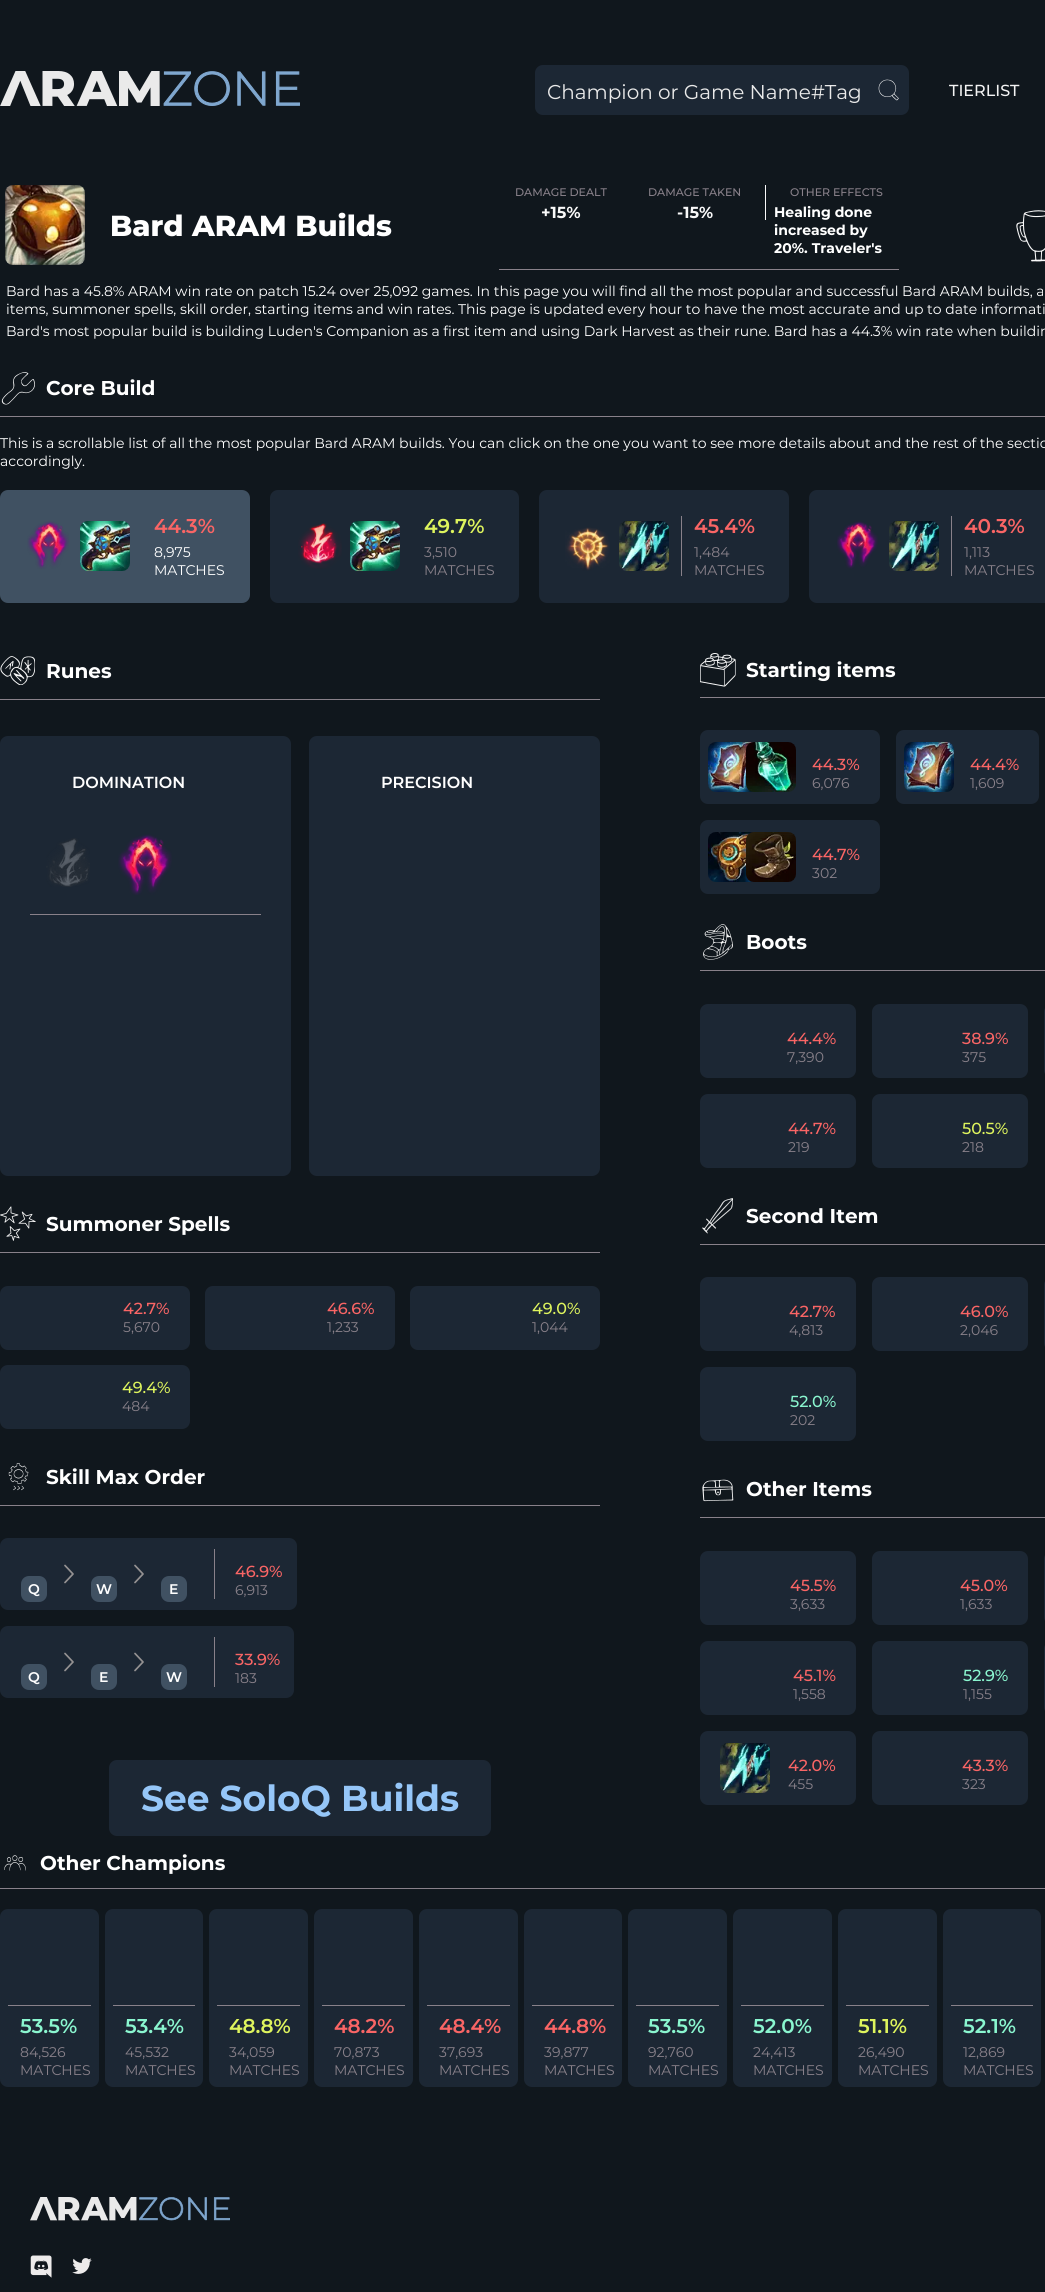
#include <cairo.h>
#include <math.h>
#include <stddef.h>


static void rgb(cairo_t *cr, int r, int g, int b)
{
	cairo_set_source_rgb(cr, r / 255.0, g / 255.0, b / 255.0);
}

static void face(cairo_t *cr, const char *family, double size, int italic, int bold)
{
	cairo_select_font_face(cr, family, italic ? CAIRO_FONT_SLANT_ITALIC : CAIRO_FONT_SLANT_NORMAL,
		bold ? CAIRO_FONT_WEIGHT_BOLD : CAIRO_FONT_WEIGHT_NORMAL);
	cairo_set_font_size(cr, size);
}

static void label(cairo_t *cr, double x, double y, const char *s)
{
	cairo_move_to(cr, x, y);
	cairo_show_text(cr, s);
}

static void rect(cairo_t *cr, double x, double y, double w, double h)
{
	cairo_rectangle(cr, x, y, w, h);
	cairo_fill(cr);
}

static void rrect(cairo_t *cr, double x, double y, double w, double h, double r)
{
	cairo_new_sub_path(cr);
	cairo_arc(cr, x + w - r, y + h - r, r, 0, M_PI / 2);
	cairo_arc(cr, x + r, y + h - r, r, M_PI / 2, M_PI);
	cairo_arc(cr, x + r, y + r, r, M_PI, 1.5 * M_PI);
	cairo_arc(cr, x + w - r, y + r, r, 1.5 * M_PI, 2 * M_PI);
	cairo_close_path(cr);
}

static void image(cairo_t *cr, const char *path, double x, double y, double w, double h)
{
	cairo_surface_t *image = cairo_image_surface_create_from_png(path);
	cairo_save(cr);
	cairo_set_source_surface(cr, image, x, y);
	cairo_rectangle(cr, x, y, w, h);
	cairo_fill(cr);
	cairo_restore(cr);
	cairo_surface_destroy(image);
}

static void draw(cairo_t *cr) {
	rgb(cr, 16, 23, 29);
	cairo_paint(cr);
	image(cr, "image0.png", 0, 71, 300, 35);
	rgb(cr, 28, 39, 52);
	rrect(cr, 535, 65, 374, 50, 8);
	cairo_fill(cr);
	face(cr, "Montserrat", 20, 0, 0);
	rgb(cr, 234, 234, 234);
	label(cr, 547, 99, "Champion or Game Name#Tag");
	image(cr, "image1.png", 878, 79, 21, 22);
	face(cr, "Montserrat Medium", 16, 0, 0);
	rgb(cr, 243, 243, 243);
	label(cr, 949, 96, "TIERLIST");
	image(cr, "image2.png", 5, 185, 80, 80);
	face(cr, "Montserrat ExtraBold", 29, 0, 0);
	rgb(cr, 255, 255, 255);
	label(cr, 110, 236, "Bard ARAM Builds");
	rgb(cr, 137, 129, 138);
	rect(cr, 499, 269, 400, 1);
	face(cr, "Montserrat Medium", 11, 0, 0);
	label(cr, 515, 196, "DAMAGE DEALT");
	face(cr, "Montserrat", 16, 0, 1);
	rgb(cr, 249, 249, 249);
	label(cr, 541, 218, "+15%");
	face(cr, "Montserrat Medium", 11, 0, 0);
	rgb(cr, 137, 129, 138);
	label(cr, 648, 196, "DAMAGE TAKEN");
	face(cr, "Montserrat", 16, 0, 1);
	rgb(cr, 249, 249, 249);
	label(cr, 677, 218, "-15%");
	rect(cr, 765, 185, 1, 35);
	face(cr, "Montserrat Medium", 11, 0, 0);
	rgb(cr, 137, 129, 138);
	label(cr, 790, 196, "OTHER EFFECTS");
	face(cr, "Montserrat", 14, 0, 1);
	rgb(cr, 255, 255, 255);
	label(cr, 774, 217, "Healing done");
	label(cr, 774, 235, "increased by");
	label(cr, 774, 253, "20%. Traveler's");
	image(cr, "image3.png", 1016, 210, 29, 52);
	face(cr, "Montserrat", 14, 0, 0);
	label(cr, 6, 296, "Bard has a 45.8% ARAM win rate on patch 15.24 over 25,092 games. In this page you will find all the most popular and successful Bard ARAM builds, a");
	label(cr, 6, 314, "items, summoner spells, skill order, starting items and win rates. This page is updated every hour to have the most accurate and up to date informati");
	label(cr, 6, 336, "Bard's most popular build is building Luden's Companion as a first item and using Dark Harvest as their rune. Bard has a 44.3% win rate when buildin");
	rgb(cr, 137, 129, 138);
	rect(cr, 0, 416, 1045, 1);
	image(cr, "image4.png", 1, 372, 34, 33);
	face(cr, "Montserrat", 20, 0, 1);
	rgb(cr, 255, 255, 255);
	label(cr, 46, 395, "Core Build");
	face(cr, "Montserrat", 14, 0, 0);
	label(cr, 0, 448, "This is a scrollable list of all the most popular Bard ARAM builds. You can click on the one you want to see more details about and the rest of the sectio");
	label(cr, 0, 466, "accordingly.");
	rgb(cr, 64, 81, 98);
	rrect(cr, 0, 490, 250, 113, 8);
	cairo_fill(cr);
	image(cr, "image5.png", 27, 521, 42, 48);
	image(cr, "image6.png", 80, 521, 50, 50);
	face(cr, "Montserrat SemiBold", 20, 0, 0);
	rgb(cr, 250, 101, 101);
	label(cr, 154, 533, "44.3%");
	face(cr, "Montserrat", 14, 0, 0);
	rgb(cr, 255, 255, 255);
	label(cr, 154, 557, "8,975");
	label(cr, 154, 575, "MATCHES");
	rgb(cr, 28, 39, 52);
	rrect(cr, 270, 490, 249, 113, 8);
	cairo_fill(cr);
	image(cr, "image7.png", 298, 523, 44, 46);
	image(cr, "image8.png", 350, 521, 50, 50);
	face(cr, "Montserrat SemiBold", 20, 0, 0);
	rgb(cr, 222, 244, 93);
	label(cr, 424, 533, "49.7%");
	face(cr, "Montserrat", 14, 0, 0);
	rgb(cr, 137, 129, 138);
	label(cr, 424, 557, "3,510");
	label(cr, 424, 575, "MATCHES");
	rgb(cr, 28, 39, 52);
	rrect(cr, 539, 490, 250, 113, 8);
	cairo_fill(cr);
	image(cr, "image9.png", 565, 527, 45, 44);
	image(cr, "image10.png", 619, 521, 50, 50);
	rgb(cr, 137, 129, 138);
	rect(cr, 681, 516, 1, 60);
	face(cr, "Montserrat SemiBold", 20, 0, 0);
	rgb(cr, 250, 101, 101);
	label(cr, 694, 533, "45.4%");
	face(cr, "Montserrat", 14, 0, 0);
	rgb(cr, 137, 129, 138);
	label(cr, 694, 557, "1,484");
	label(cr, 694, 575, "MATCHES");
	rgb(cr, 28, 39, 52);
	rrect(cr, 809, 490, 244, 113, 8);
	cairo_fill(cr);
	image(cr, "image11.png", 837, 521, 41, 48);
	image(cr, "image12.png", 889, 521, 50, 50);
	rgb(cr, 137, 129, 138);
	rect(cr, 951, 516, 1, 60);
	face(cr, "Montserrat SemiBold", 20, 0, 0);
	rgb(cr, 250, 101, 101);
	label(cr, 964, 533, "40.3%");
	face(cr, "Montserrat", 14, 0, 0);
	rgb(cr, 137, 129, 138);
	label(cr, 964, 557, "1,113");
	label(cr, 964, 575, "MATCHES");
	rect(cr, 0, 699, 600, 1);
	image(cr, "image13.png", 0, 656, 35, 29);
	face(cr, "Montserrat", 20, 0, 1);
	rgb(cr, 255, 255, 255);
	label(cr, 46, 678, "Runes");
	rgb(cr, 28, 39, 52);
	rrect(cr, 0, 736, 291, 440, 8);
	cairo_fill(cr);
	face(cr, "Montserrat SemiBold", 16, 0, 0);
	rgb(cr, 255, 255, 255);
	label(cr, 72, 788, "DOMINATION");
	rgb(cr, 137, 129, 138);
	rect(cr, 30, 914, 231, 1);
	image(cr, "image14.png", 46, 838, 44, 49);
	image(cr, "image15.png", 118, 834, 54, 61);
	rgb(cr, 28, 39, 52);
	rrect(cr, 309, 736, 291, 440, 8);
	cairo_fill(cr);
	rgb(cr, 255, 255, 255);
	label(cr, 381, 788, "PRECISION");
	rgb(cr, 137, 129, 138);
	rect(cr, 0, 1252, 600, 1);
	image(cr, "image16.png", 0, 1206, 36, 35);
	face(cr, "Montserrat", 20, 0, 1);
	rgb(cr, 255, 255, 255);
	label(cr, 46, 1231, "Summoner Spells");
	rgb(cr, 28, 39, 52);
	rrect(cr, 0, 1286, 190, 64, 8);
	cairo_fill(cr);
	face(cr, "Montserrat Medium", 16, 0, 0);
	rgb(cr, 250, 101, 101);
	label(cr, 123, 1314, "42.7%");
	face(cr, "Montserrat", 14, 0, 0);
	rgb(cr, 137, 129, 138);
	label(cr, 123, 1332, "5,670");
	rgb(cr, 28, 39, 52);
	rrect(cr, 205, 1286, 190, 64, 8);
	cairo_fill(cr);
	face(cr, "Montserrat Medium", 16, 0, 0);
	rgb(cr, 250, 101, 101);
	label(cr, 327, 1314, "46.6%");
	face(cr, "Montserrat", 14, 0, 0);
	rgb(cr, 137, 129, 138);
	label(cr, 327, 1332, "1,233");
	rgb(cr, 28, 39, 52);
	rrect(cr, 410, 1286, 190, 64, 8);
	cairo_fill(cr);
	face(cr, "Montserrat Medium", 16, 0, 0);
	rgb(cr, 222, 244, 93);
	label(cr, 532, 1314, "49.0%");
	face(cr, "Montserrat", 14, 0, 0);
	rgb(cr, 137, 129, 138);
	label(cr, 532, 1332, "1,044");
	rgb(cr, 28, 39, 52);
	rrect(cr, 0, 1365, 190, 64, 8);
	cairo_fill(cr);
	face(cr, "Montserrat Medium", 16, 0, 0);
	rgb(cr, 222, 244, 93);
	label(cr, 122, 1393, "49.4%");
	face(cr, "Montserrat", 14, 0, 0);
	rgb(cr, 137, 129, 138);
	label(cr, 122, 1411, "484");
	rect(cr, 0, 1505, 600, 1);
	image(cr, "image17.png", 8, 1463, 21, 28);
	face(cr, "Montserrat", 20, 0, 1);
	rgb(cr, 255, 255, 255);
	label(cr, 46, 1484, "Skill Max Order");
	rgb(cr, 28, 39, 52);
	rrect(cr, 0, 1538, 297, 72, 8);
	cairo_fill(cr);
	rgb(cr, 64, 81, 98);
	rrect(cr, 21, 1576, 26, 26, 8);
	cairo_fill(cr);
	face(cr, "Montserrat SemiBold", 14, 0, 0);
	rgb(cr, 255, 255, 255);
	label(cr, 28, 1594, "Q");
	cairo_new_path(cr);
	cairo_move_to(cr, 65, 1565.5);
	cairo_line_to(cr, 73, 1574);
	cairo_line_to(cr, 65, 1582.5);
	rgb(cr, 149, 146, 146);
	cairo_set_line_width(cr, 1.7);
	cairo_set_line_cap(cr, CAIRO_LINE_CAP_ROUND);
	cairo_set_line_join(cr, CAIRO_LINE_JOIN_ROUND);
	cairo_stroke(cr);
	rgb(cr, 64, 81, 98);
	rrect(cr, 91, 1576, 26, 26, 8);
	cairo_fill(cr);
	rgb(cr, 255, 255, 255);
	label(cr, 96, 1594, "W");
	cairo_new_path(cr);
	cairo_move_to(cr, 135, 1565.5);
	cairo_line_to(cr, 143, 1574);
	cairo_line_to(cr, 135, 1582.5);
	rgb(cr, 149, 146, 146);
	cairo_stroke(cr);
	rgb(cr, 64, 81, 98);
	rrect(cr, 161, 1576, 26, 26, 8);
	cairo_fill(cr);
	rgb(cr, 255, 255, 255);
	label(cr, 169, 1594, "E");
	rgb(cr, 137, 129, 138);
	rect(cr, 214, 1549, 1, 50);
	face(cr, "Montserrat Medium", 16, 0, 0);
	rgb(cr, 250, 101, 101);
	label(cr, 235, 1577, "46.9%");
	face(cr, "Montserrat", 14, 0, 0);
	rgb(cr, 137, 129, 138);
	label(cr, 235, 1595, "6,913");
	rgb(cr, 28, 39, 52);
	rrect(cr, 0, 1626, 294, 72, 8);
	cairo_fill(cr);
	rgb(cr, 64, 81, 98);
	rrect(cr, 21, 1664, 26, 26, 8);
	cairo_fill(cr);
	face(cr, "Montserrat SemiBold", 14, 0, 0);
	rgb(cr, 255, 255, 255);
	label(cr, 28, 1682, "Q");
	cairo_new_path(cr);
	cairo_move_to(cr, 65, 1653.5);
	cairo_line_to(cr, 73, 1662);
	cairo_line_to(cr, 65, 1670.5);
	rgb(cr, 149, 146, 146);
	cairo_stroke(cr);
	rgb(cr, 64, 81, 98);
	rrect(cr, 91, 1664, 26, 26, 8);
	cairo_fill(cr);
	rgb(cr, 255, 255, 255);
	label(cr, 99, 1682, "E");
	cairo_new_path(cr);
	cairo_move_to(cr, 135, 1653.5);
	cairo_line_to(cr, 143, 1662);
	cairo_line_to(cr, 135, 1670.5);
	rgb(cr, 149, 146, 146);
	cairo_stroke(cr);
	rgb(cr, 64, 81, 98);
	rrect(cr, 161, 1664, 26, 26, 8);
	cairo_fill(cr);
	rgb(cr, 255, 255, 255);
	label(cr, 166, 1682, "W");
	rgb(cr, 137, 129, 138);
	rect(cr, 214, 1637, 1, 50);
	face(cr, "Montserrat Medium", 16, 0, 0);
	rgb(cr, 250, 101, 101);
	label(cr, 235, 1665, "33.9%");
	face(cr, "Montserrat", 14, 0, 0);
	rgb(cr, 137, 129, 138);
	label(cr, 235, 1683, "183");
	rgb(cr, 28, 39, 52);
	rrect(cr, 109, 1760, 382, 76, 8);
	cairo_fill(cr);
	face(cr, "Montserrat", 36, 0, 1);
	rgb(cr, 149, 198, 248);
	label(cr, 141, 1811, "See SoloQ Builds");
	rgb(cr, 137, 129, 138);
	rect(cr, 700, 697, 345, 1);
	image(cr, "image18.png", 700, 653, 36, 34);
	face(cr, "Montserrat", 20, 0, 1);
	rgb(cr, 255, 255, 255);
	label(cr, 746, 677, "Starting items");
	rgb(cr, 28, 39, 52);
	rrect(cr, 700, 730, 180, 74, 8);
	cairo_fill(cr);
	image(cr, "image19.png", 708, 742, 46, 50);
	image(cr, "image20.png", 746, 742, 50, 50);
	face(cr, "Montserrat Medium", 16, 0, 0);
	rgb(cr, 250, 101, 101);
	label(cr, 812, 770, "44.3%");
	face(cr, "Montserrat", 14, 0, 0);
	rgb(cr, 137, 129, 138);
	label(cr, 812, 788, "6,076");
	rgb(cr, 28, 39, 52);
	rrect(cr, 896, 730, 143, 74, 8);
	cairo_fill(cr);
	image(cr, "image21.png", 904, 742, 50, 50);
	face(cr, "Montserrat Medium", 16, 0, 0);
	rgb(cr, 250, 101, 101);
	label(cr, 970, 770, "44.4%");
	face(cr, "Montserrat", 14, 0, 0);
	rgb(cr, 137, 129, 138);
	label(cr, 970, 788, "1,609");
	rgb(cr, 28, 39, 52);
	rrect(cr, 700, 820, 180, 74, 8);
	cairo_fill(cr);
	image(cr, "image22.png", 708, 832, 46, 50);
	image(cr, "image23.png", 746, 832, 50, 50);
	face(cr, "Montserrat Medium", 16, 0, 0);
	rgb(cr, 250, 101, 101);
	label(cr, 812, 860, "44.7%");
	face(cr, "Montserrat", 14, 0, 0);
	rgb(cr, 137, 129, 138);
	label(cr, 812, 878, "302");
	rect(cr, 700, 970, 345, 1);
	image(cr, "image24.png", 703, 924, 30, 36);
	face(cr, "Montserrat", 20, 0, 1);
	rgb(cr, 255, 255, 255);
	label(cr, 746, 949, "Boots");
	rgb(cr, 28, 39, 52);
	rrect(cr, 700, 1004, 156, 74, 8);
	cairo_fill(cr);
	face(cr, "Montserrat Medium", 16, 0, 0);
	rgb(cr, 250, 101, 101);
	label(cr, 787, 1044, "44.4%");
	face(cr, "Montserrat", 14, 0, 0);
	rgb(cr, 137, 129, 138);
	label(cr, 787, 1062, "7,390");
	rgb(cr, 28, 39, 52);
	rrect(cr, 872, 1004, 156, 74, 8);
	cairo_fill(cr);
	face(cr, "Montserrat Medium", 16, 0, 0);
	rgb(cr, 250, 101, 101);
	label(cr, 962, 1044, "38.9%");
	face(cr, "Montserrat", 14, 0, 0);
	rgb(cr, 137, 129, 138);
	label(cr, 962, 1062, "375");
	rgb(cr, 28, 39, 52);
	rrect(cr, 1044, 1004, 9, 74, 8);
	cairo_fill(cr);
	rrect(cr, 700, 1094, 156, 74, 8);
	cairo_fill(cr);
	face(cr, "Montserrat Medium", 16, 0, 0);
	rgb(cr, 250, 101, 101);
	label(cr, 788, 1134, "44.7%");
	face(cr, "Montserrat", 14, 0, 0);
	rgb(cr, 137, 129, 138);
	label(cr, 788, 1152, "219");
	rgb(cr, 28, 39, 52);
	rrect(cr, 872, 1094, 156, 74, 8);
	cairo_fill(cr);
	face(cr, "Montserrat Medium", 16, 0, 0);
	rgb(cr, 222, 244, 93);
	label(cr, 962, 1134, "50.5%");
	face(cr, "Montserrat", 14, 0, 0);
	rgb(cr, 137, 129, 138);
	label(cr, 962, 1152, "218");
	rect(cr, 700, 1244, 345, 1);
	image(cr, "image25.png", 702, 1198, 31, 36);
	face(cr, "Montserrat", 20, 0, 1);
	rgb(cr, 255, 255, 255);
	label(cr, 746, 1223, "Second Item");
	rgb(cr, 28, 39, 52);
	rrect(cr, 700, 1277, 156, 74, 8);
	cairo_fill(cr);
	face(cr, "Montserrat Medium", 16, 0, 0);
	rgb(cr, 250, 101, 101);
	label(cr, 789, 1317, "42.7%");
	face(cr, "Montserrat", 14, 0, 0);
	rgb(cr, 137, 129, 138);
	label(cr, 789, 1335, "4,813");
	rgb(cr, 28, 39, 52);
	rrect(cr, 872, 1277, 156, 74, 8);
	cairo_fill(cr);
	face(cr, "Montserrat Medium", 16, 0, 0);
	rgb(cr, 250, 101, 101);
	label(cr, 960, 1317, "46.0%");
	face(cr, "Montserrat", 14, 0, 0);
	rgb(cr, 137, 129, 138);
	label(cr, 960, 1335, "2,046");
	rgb(cr, 28, 39, 52);
	rrect(cr, 1044, 1277, 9, 74, 8);
	cairo_fill(cr);
	rrect(cr, 700, 1367, 156, 74, 8);
	cairo_fill(cr);
	face(cr, "Montserrat Medium", 16, 0, 0);
	rgb(cr, 138, 246, 207);
	label(cr, 790, 1407, "52.0%");
	face(cr, "Montserrat", 14, 0, 0);
	rgb(cr, 137, 129, 138);
	label(cr, 790, 1425, "202");
	rect(cr, 700, 1517, 345, 1);
	image(cr, "image26.png", 702, 1479, 32, 23);
	face(cr, "Montserrat", 20, 0, 1);
	rgb(cr, 255, 255, 255);
	label(cr, 746, 1496, "Other Items");
	rgb(cr, 28, 39, 52);
	rrect(cr, 700, 1551, 156, 74, 8);
	cairo_fill(cr);
	face(cr, "Montserrat Medium", 16, 0, 0);
	rgb(cr, 250, 101, 101);
	label(cr, 790, 1591, "45.5%");
	face(cr, "Montserrat", 14, 0, 0);
	rgb(cr, 137, 129, 138);
	label(cr, 790, 1609, "3,633");
	rgb(cr, 28, 39, 52);
	rrect(cr, 872, 1551, 156, 74, 8);
	cairo_fill(cr);
	face(cr, "Montserrat Medium", 16, 0, 0);
	rgb(cr, 250, 101, 101);
	label(cr, 960, 1591, "45.0%");
	face(cr, "Montserrat", 14, 0, 0);
	rgb(cr, 137, 129, 138);
	label(cr, 960, 1609, "1,633");
	rgb(cr, 28, 39, 52);
	rrect(cr, 1044, 1551, 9, 74, 8);
	cairo_fill(cr);
	rrect(cr, 700, 1641, 156, 74, 8);
	cairo_fill(cr);
	face(cr, "Montserrat Medium", 16, 0, 0);
	rgb(cr, 250, 101, 101);
	label(cr, 793, 1681, "45.1%");
	face(cr, "Montserrat", 14, 0, 0);
	rgb(cr, 137, 129, 138);
	label(cr, 793, 1699, "1,558");
	rgb(cr, 28, 39, 52);
	rrect(cr, 872, 1641, 156, 74, 8);
	cairo_fill(cr);
	face(cr, "Montserrat Medium", 16, 0, 0);
	rgb(cr, 138, 246, 207);
	label(cr, 963, 1681, "52.9%");
	face(cr, "Montserrat", 14, 0, 0);
	rgb(cr, 137, 129, 138);
	label(cr, 963, 1699, "1,155");
	rgb(cr, 28, 39, 52);
	rrect(cr, 1044, 1641, 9, 74, 8);
	cairo_fill(cr);
	rrect(cr, 700, 1731, 156, 74, 8);
	cairo_fill(cr);
	image(cr, "image27.png", 720, 1743, 50, 50);
	face(cr, "Montserrat Medium", 16, 0, 0);
	rgb(cr, 250, 101, 101);
	label(cr, 788, 1771, "42.0%");
	face(cr, "Montserrat", 14, 0, 0);
	rgb(cr, 137, 129, 138);
	label(cr, 788, 1789, "455");
	rgb(cr, 28, 39, 52);
	rrect(cr, 872, 1731, 156, 74, 8);
	cairo_fill(cr);
	face(cr, "Montserrat Medium", 16, 0, 0);
	rgb(cr, 250, 101, 101);
	label(cr, 962, 1771, "43.3%");
	face(cr, "Montserrat", 14, 0, 0);
	rgb(cr, 137, 129, 138);
	label(cr, 962, 1789, "323");
	rect(cr, 0, 1888, 1045, 1);
	image(cr, "image28.png", 4, 1855, 22, 16);
	face(cr, "Montserrat", 20, 0, 1);
	rgb(cr, 255, 255, 255);
	label(cr, 40, 1870, "Other Champions");
	rgb(cr, 28, 39, 52);
	rrect(cr, 0, 1909, 99, 178, 8);
	cairo_fill(cr);
	rgb(cr, 137, 129, 138);
	rect(cr, 8, 2005, 83, 1);
	face(cr, "Montserrat SemiBold", 20, 0, 0);
	rgb(cr, 138, 246, 207);
	label(cr, 20, 2033, "53.5%");
	face(cr, "Montserrat", 14, 0, 0);
	rgb(cr, 137, 129, 138);
	label(cr, 20, 2057, "84,526");
	label(cr, 20, 2075, "MATCHES");
	rgb(cr, 28, 39, 52);
	rrect(cr, 105, 1909, 98, 178, 8);
	cairo_fill(cr);
	rgb(cr, 137, 129, 138);
	rect(cr, 113, 2005, 82, 1);
	face(cr, "Montserrat SemiBold", 20, 0, 0);
	rgb(cr, 138, 246, 207);
	label(cr, 125, 2033, "53.4%");
	face(cr, "Montserrat", 14, 0, 0);
	rgb(cr, 137, 129, 138);
	label(cr, 125, 2057, "45,532");
	label(cr, 125, 2075, "MATCHES");
	rgb(cr, 28, 39, 52);
	rrect(cr, 209, 1909, 99, 178, 8);
	cairo_fill(cr);
	rgb(cr, 137, 129, 138);
	rect(cr, 217, 2005, 83, 1);
	face(cr, "Montserrat SemiBold", 20, 0, 0);
	rgb(cr, 222, 244, 93);
	label(cr, 229, 2033, "48.8%");
	face(cr, "Montserrat", 14, 0, 0);
	rgb(cr, 137, 129, 138);
	label(cr, 229, 2057, "34,059");
	label(cr, 229, 2075, "MATCHES");
	rgb(cr, 28, 39, 52);
	rrect(cr, 314, 1909, 99, 178, 8);
	cairo_fill(cr);
	rgb(cr, 137, 129, 138);
	rect(cr, 322, 2005, 83, 1);
	face(cr, "Montserrat SemiBold", 20, 0, 0);
	rgb(cr, 250, 101, 101);
	label(cr, 334, 2033, "48.2%");
	face(cr, "Montserrat", 14, 0, 0);
	rgb(cr, 137, 129, 138);
	label(cr, 334, 2057, "70,873");
	label(cr, 334, 2075, "MATCHES");
	rgb(cr, 28, 39, 52);
	rrect(cr, 419, 1909, 99, 178, 8);
	cairo_fill(cr);
	rgb(cr, 137, 129, 138);
	rect(cr, 427, 2005, 83, 1);
	face(cr, "Montserrat SemiBold", 20, 0, 0);
	rgb(cr, 250, 101, 101);
	label(cr, 439, 2033, "48.4%");
	face(cr, "Montserrat", 14, 0, 0);
	rgb(cr, 137, 129, 138);
	label(cr, 439, 2057, "37,693");
	label(cr, 439, 2075, "MATCHES");
	rgb(cr, 28, 39, 52);
	rrect(cr, 524, 1909, 98, 178, 8);
	cairo_fill(cr);
	rgb(cr, 137, 129, 138);
	rect(cr, 532, 2005, 82, 1);
	face(cr, "Montserrat SemiBold", 20, 0, 0);
	rgb(cr, 250, 101, 101);
	label(cr, 544, 2033, "44.8%");
	face(cr, "Montserrat", 14, 0, 0);
	rgb(cr, 137, 129, 138);
	label(cr, 544, 2057, "39,877");
	label(cr, 544, 2075, "MATCHES");
	rgb(cr, 28, 39, 52);
	rrect(cr, 628, 1909, 99, 178, 8);
	cairo_fill(cr);
	rgb(cr, 137, 129, 138);
	rect(cr, 636, 2005, 83, 1);
	face(cr, "Montserrat SemiBold", 20, 0, 0);
	rgb(cr, 138, 246, 207);
	label(cr, 648, 2033, "53.5%");
	face(cr, "Montserrat", 14, 0, 0);
	rgb(cr, 137, 129, 138);
	label(cr, 648, 2057, "92,760");
	label(cr, 648, 2075, "MATCHES");
	rgb(cr, 28, 39, 52);
	rrect(cr, 733, 1909, 99, 178, 8);
	cairo_fill(cr);
	rgb(cr, 137, 129, 138);
	rect(cr, 741, 2005, 83, 1);
	face(cr, "Montserrat SemiBold", 20, 0, 0);
	rgb(cr, 138, 246, 207);
	label(cr, 753, 2033, "52.0%");
	face(cr, "Montserrat", 14, 0, 0);
	rgb(cr, 137, 129, 138);
	label(cr, 753, 2057, "24,413");
	label(cr, 753, 2075, "MATCHES");
	rgb(cr, 28, 39, 52);
	rrect(cr, 838, 1909, 99, 178, 8);
	cairo_fill(cr);
	rgb(cr, 137, 129, 138);
	rect(cr, 846, 2005, 83, 1);
	face(cr, "Montserrat SemiBold", 20, 0, 0);
	rgb(cr, 222, 244, 93);
	label(cr, 858, 2033, "51.1%");
	face(cr, "Montserrat", 14, 0, 0);
	rgb(cr, 137, 129, 138);
	label(cr, 858, 2057, "26,490");
	label(cr, 858, 2075, "MATCHES");
	rgb(cr, 28, 39, 52);
	rrect(cr, 943, 1909, 98, 178, 8);
	cairo_fill(cr);
	rgb(cr, 137, 129, 138);
	rect(cr, 951, 2005, 82, 1);
	face(cr, "Montserrat SemiBold", 20, 0, 0);
	rgb(cr, 138, 246, 207);
	label(cr, 963, 2033, "52.1%");
	face(cr, "Montserrat", 14, 0, 0);
	rgb(cr, 137, 129, 138);
	label(cr, 963, 2057, "12,869");
	label(cr, 963, 2075, "MATCHES");
	image(cr, "image29.png", 30, 2197, 200, 24);
	image(cr, "image30.png", 30, 2255, 22, 23);
	image(cr, "image31.png", 72, 2258, 20, 16);
}

int main(void) {
	cairo_surface_t *surface = cairo_image_surface_create(CAIRO_FORMAT_RGB24, 1045, 2292);
	cairo_t *cr = cairo_create(surface);
	cairo_font_options_t *options = cairo_font_options_create();
	cairo_font_options_set_hint_metrics(options, CAIRO_HINT_METRICS_OFF);
	cairo_font_options_set_hint_style(options, CAIRO_HINT_STYLE_NONE);
	cairo_set_font_options(cr, options);
	cairo_set_miter_limit(cr, 4);
	draw(cr);
	cairo_surface_write_to_png(surface, "render.png");
	cairo_font_options_destroy(options);
	cairo_destroy(cr);
	cairo_surface_destroy(surface);
	return 0;
}
